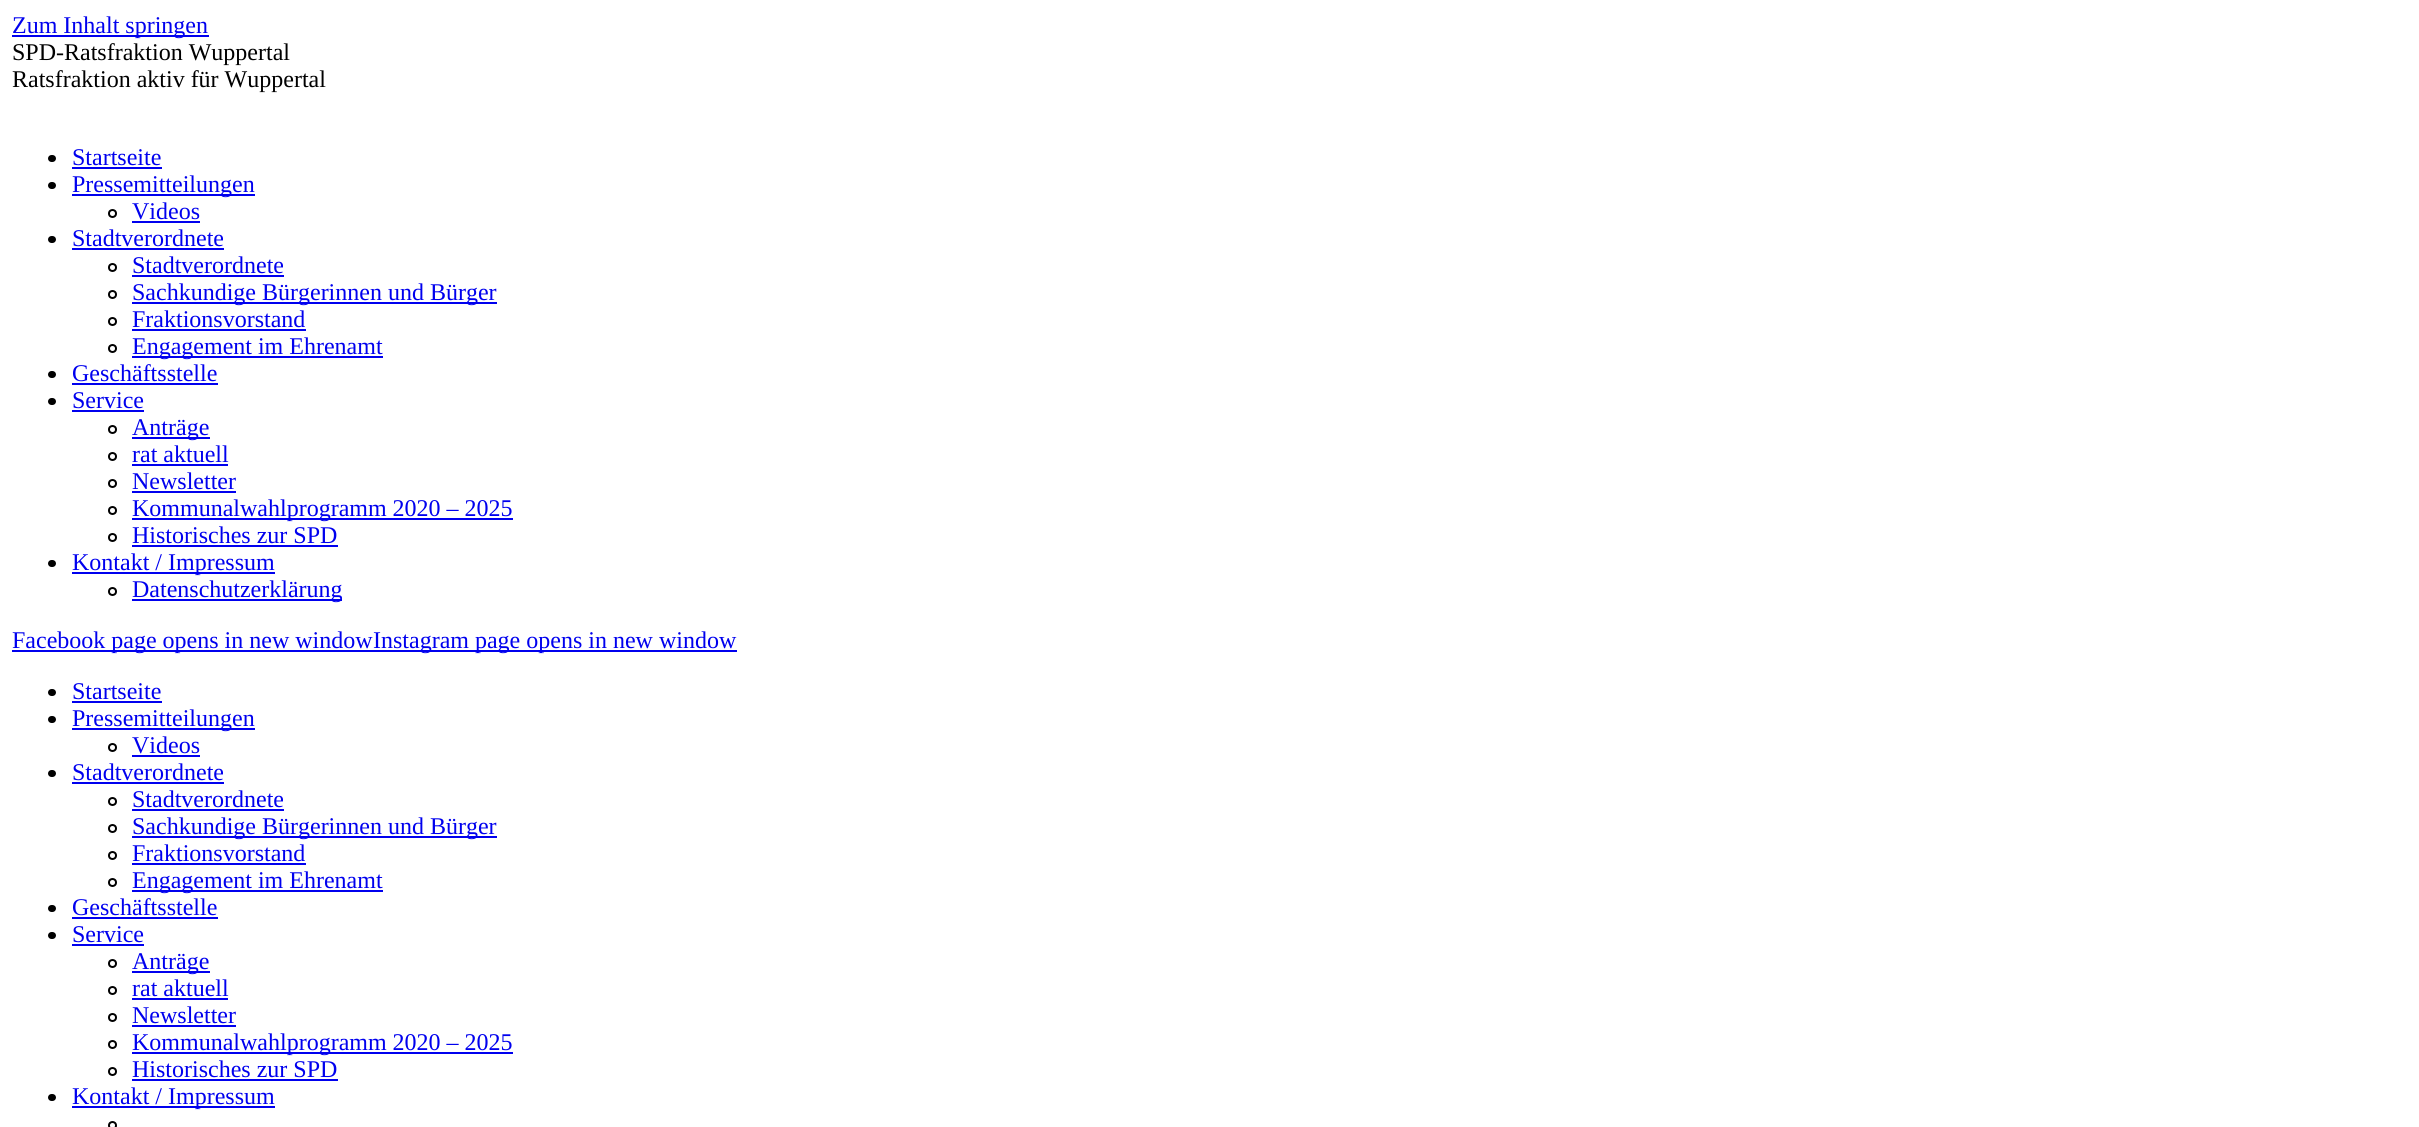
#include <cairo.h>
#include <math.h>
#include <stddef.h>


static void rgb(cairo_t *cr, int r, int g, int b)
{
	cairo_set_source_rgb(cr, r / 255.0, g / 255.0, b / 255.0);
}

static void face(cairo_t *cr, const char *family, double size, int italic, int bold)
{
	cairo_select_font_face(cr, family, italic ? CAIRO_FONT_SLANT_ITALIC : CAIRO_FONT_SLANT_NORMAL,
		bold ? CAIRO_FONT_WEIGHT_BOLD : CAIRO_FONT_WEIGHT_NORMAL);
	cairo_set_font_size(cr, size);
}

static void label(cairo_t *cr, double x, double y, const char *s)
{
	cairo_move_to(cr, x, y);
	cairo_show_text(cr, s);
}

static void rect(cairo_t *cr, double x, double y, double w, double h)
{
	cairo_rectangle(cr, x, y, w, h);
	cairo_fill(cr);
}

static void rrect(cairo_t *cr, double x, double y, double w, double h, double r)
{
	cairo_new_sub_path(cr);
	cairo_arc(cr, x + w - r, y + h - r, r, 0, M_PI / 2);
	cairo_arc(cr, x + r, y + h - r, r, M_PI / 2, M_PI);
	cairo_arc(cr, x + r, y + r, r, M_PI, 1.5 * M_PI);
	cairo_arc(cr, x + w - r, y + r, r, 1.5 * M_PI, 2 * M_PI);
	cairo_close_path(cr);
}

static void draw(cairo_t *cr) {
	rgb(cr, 255, 255, 255);
	cairo_paint(cr);
	rgb(cr, 0, 0, 238);
	rect(cr, 12, 35, 197, 2);
	face(cr, "Liberation Serif", 24, 0, 0);
	label(cr, 12, 33, "Zum Inhalt springen");
	rgb(cr, 0, 0, 0);
	label(cr, 12, 60, "SPD-Ratsfraktion Wuppertal");
	label(cr, 12, 87, "Ratsfraktion aktiv für Wuppertal");
	rrect(cr, 48, 155, 8, 7, 3.5);
	cairo_fill(cr);
	rgb(cr, 0, 0, 238);
	label(cr, 72, 165, "Startseite");
	rect(cr, 72, 167, 90, 2);
	rgb(cr, 0, 0, 0);
	rrect(cr, 48, 182, 8, 7, 3.5);
	cairo_fill(cr);
	rgb(cr, 0, 0, 238);
	rect(cr, 72, 194, 183, 2);
	label(cr, 72, 192, "Pressemitteilungen");
	cairo_new_path(cr);
	cairo_arc(cr, 112.5, 213.5, 3.5, 0, 2 * M_PI);
	rgb(cr, 0, 0, 0);
	cairo_stroke(cr);
	rgb(cr, 0, 0, 238);
	label(cr, 132, 219, "Videos");
	rect(cr, 132, 221, 68, 2);
	rgb(cr, 0, 0, 0);
	rrect(cr, 48, 236, 8, 7, 3.5);
	cairo_fill(cr);
	rgb(cr, 0, 0, 238);
	label(cr, 72, 246, "Stadtverordnete");
	rect(cr, 72, 248, 152, 2);
	cairo_new_path(cr);
	cairo_arc(cr, 112.5, 267.5, 3.5, 0, 2 * M_PI);
	rgb(cr, 0, 0, 0);
	cairo_stroke(cr);
	rgb(cr, 0, 0, 238);
	label(cr, 132, 273, "Stadtverordnete");
	rect(cr, 132, 275, 152, 2);
	cairo_new_path(cr);
	cairo_arc(cr, 112.5, 294.5, 3.5, 0, 2 * M_PI);
	rgb(cr, 0, 0, 0);
	cairo_stroke(cr);
	rgb(cr, 0, 0, 238);
	rect(cr, 132, 302, 365, 2);
	label(cr, 132, 300, "Sachkundige Bürgerinnen und Bürger");
	cairo_new_path(cr);
	cairo_arc(cr, 112.5, 321.5, 3.5, 0, 2 * M_PI);
	rgb(cr, 0, 0, 0);
	cairo_stroke(cr);
	rgb(cr, 0, 0, 238);
	label(cr, 132, 327, "Fraktionsvorstand");
	rect(cr, 132, 329, 174, 2);
	cairo_new_path(cr);
	cairo_arc(cr, 112.5, 348.5, 3.5, 0, 2 * M_PI);
	rgb(cr, 0, 0, 0);
	cairo_stroke(cr);
	rgb(cr, 0, 0, 238);
	rect(cr, 132, 356, 251, 2);
	label(cr, 132, 354, "Engagement im Ehrenamt");
	rgb(cr, 0, 0, 0);
	rrect(cr, 48, 371, 8, 7, 3.5);
	cairo_fill(cr);
	rgb(cr, 0, 0, 238);
	label(cr, 72, 381, "Geschäftsstelle");
	rect(cr, 72, 383, 146, 2);
	rgb(cr, 0, 0, 0);
	rrect(cr, 48, 398, 8, 7, 3.5);
	cairo_fill(cr);
	rgb(cr, 0, 0, 238);
	label(cr, 72, 408, "Service");
	rect(cr, 72, 410, 72, 2);
	cairo_new_path(cr);
	cairo_arc(cr, 112.5, 429.5, 3.5, 0, 2 * M_PI);
	rgb(cr, 0, 0, 0);
	cairo_stroke(cr);
	rgb(cr, 0, 0, 238);
	rect(cr, 132, 437, 78, 2);
	label(cr, 132, 435, "Anträge");
	cairo_new_path(cr);
	cairo_arc(cr, 112.5, 456.5, 3.5, 0, 2 * M_PI);
	rgb(cr, 0, 0, 0);
	cairo_stroke(cr);
	rgb(cr, 0, 0, 238);
	label(cr, 132, 462, "rat aktuell");
	rect(cr, 132, 464, 96, 2);
	cairo_new_path(cr);
	cairo_arc(cr, 112.5, 483.5, 3.5, 0, 2 * M_PI);
	rgb(cr, 0, 0, 0);
	cairo_stroke(cr);
	rgb(cr, 0, 0, 238);
	label(cr, 132, 489, "Newsletter");
	rect(cr, 132, 491, 104, 2);
	cairo_new_path(cr);
	cairo_arc(cr, 112.5, 510.5, 3.5, 0, 2 * M_PI);
	rgb(cr, 0, 0, 0);
	cairo_stroke(cr);
	rgb(cr, 0, 0, 238);
	rect(cr, 132, 518, 381, 2);
	label(cr, 132, 516, "Kommunalwahlprogramm 2020 – 2025");
	cairo_new_path(cr);
	cairo_arc(cr, 112.5, 537.5, 3.5, 0, 2 * M_PI);
	rgb(cr, 0, 0, 0);
	cairo_stroke(cr);
	rgb(cr, 0, 0, 238);
	label(cr, 132, 543, "Historisches zur SPD");
	rect(cr, 132, 545, 206, 2);
	rgb(cr, 0, 0, 0);
	rrect(cr, 48, 560, 8, 7, 3.5);
	cairo_fill(cr);
	rgb(cr, 0, 0, 238);
	rect(cr, 72, 572, 203, 2);
	label(cr, 72, 570, "Kontakt / Impressum");
	cairo_new_path(cr);
	cairo_arc(cr, 112.5, 591.5, 3.5, 0, 2 * M_PI);
	rgb(cr, 0, 0, 0);
	cairo_stroke(cr);
	rgb(cr, 0, 0, 238);
	rect(cr, 132, 599, 210, 2);
	label(cr, 132, 597, "Datenschutzerklärung");
	rect(cr, 12, 650, 360, 2);
	label(cr, 12, 648, "Facebook page opens in new window");
	rect(cr, 372, 650, 365, 2);
	label(cr, 373, 648, "Instagram page opens in new window");
	rgb(cr, 0, 0, 0);
	rrect(cr, 48, 689, 8, 7, 3.5);
	cairo_fill(cr);
	rgb(cr, 0, 0, 238);
	label(cr, 72, 699, "Startseite");
	rect(cr, 72, 701, 90, 2);
	rgb(cr, 0, 0, 0);
	rrect(cr, 48, 716, 8, 7, 3.5);
	cairo_fill(cr);
	rgb(cr, 0, 0, 238);
	rect(cr, 72, 728, 183, 2);
	label(cr, 72, 726, "Pressemitteilungen");
	cairo_new_path(cr);
	cairo_arc(cr, 112.5, 747.5, 3.5, 0, 2 * M_PI);
	rgb(cr, 0, 0, 0);
	cairo_stroke(cr);
	rgb(cr, 0, 0, 238);
	label(cr, 132, 753, "Videos");
	rect(cr, 132, 755, 68, 2);
	rgb(cr, 0, 0, 0);
	rrect(cr, 48, 770, 8, 7, 3.5);
	cairo_fill(cr);
	rgb(cr, 0, 0, 238);
	label(cr, 72, 780, "Stadtverordnete");
	rect(cr, 72, 782, 152, 2);
	cairo_new_path(cr);
	cairo_arc(cr, 112.5, 801.5, 3.5, 0, 2 * M_PI);
	rgb(cr, 0, 0, 0);
	cairo_stroke(cr);
	rgb(cr, 0, 0, 238);
	label(cr, 132, 807, "Stadtverordnete");
	rect(cr, 132, 809, 152, 2);
	cairo_new_path(cr);
	cairo_arc(cr, 112.5, 828.5, 3.5, 0, 2 * M_PI);
	rgb(cr, 0, 0, 0);
	cairo_stroke(cr);
	rgb(cr, 0, 0, 238);
	rect(cr, 132, 836, 365, 2);
	label(cr, 132, 834, "Sachkundige Bürgerinnen und Bürger");
	cairo_new_path(cr);
	cairo_arc(cr, 112.5, 855.5, 3.5, 0, 2 * M_PI);
	rgb(cr, 0, 0, 0);
	cairo_stroke(cr);
	rgb(cr, 0, 0, 238);
	label(cr, 132, 861, "Fraktionsvorstand");
	rect(cr, 132, 863, 174, 2);
	cairo_new_path(cr);
	cairo_arc(cr, 112.5, 882.5, 3.5, 0, 2 * M_PI);
	rgb(cr, 0, 0, 0);
	cairo_stroke(cr);
	rgb(cr, 0, 0, 238);
	rect(cr, 132, 890, 251, 2);
	label(cr, 132, 888, "Engagement im Ehrenamt");
	rgb(cr, 0, 0, 0);
	rrect(cr, 48, 905, 8, 7, 3.5);
	cairo_fill(cr);
	rgb(cr, 0, 0, 238);
	label(cr, 72, 915, "Geschäftsstelle");
	rect(cr, 72, 917, 146, 2);
	rgb(cr, 0, 0, 0);
	rrect(cr, 48, 932, 8, 7, 3.5);
	cairo_fill(cr);
	rgb(cr, 0, 0, 238);
	label(cr, 72, 942, "Service");
	rect(cr, 72, 944, 72, 2);
	cairo_new_path(cr);
	cairo_arc(cr, 112.5, 963.5, 3.5, 0, 2 * M_PI);
	rgb(cr, 0, 0, 0);
	cairo_stroke(cr);
	rgb(cr, 0, 0, 238);
	rect(cr, 132, 971, 78, 2);
	label(cr, 132, 969, "Anträge");
	cairo_new_path(cr);
	cairo_arc(cr, 112.5, 990.5, 3.5, 0, 2 * M_PI);
	rgb(cr, 0, 0, 0);
	cairo_stroke(cr);
	rgb(cr, 0, 0, 238);
	label(cr, 132, 996, "rat aktuell");
	rect(cr, 132, 998, 96, 2);
	cairo_new_path(cr);
	cairo_arc(cr, 112.5, 1017.5, 3.5, 0, 2 * M_PI);
	rgb(cr, 0, 0, 0);
	cairo_stroke(cr);
	rgb(cr, 0, 0, 238);
	label(cr, 132, 1023, "Newsletter");
	rect(cr, 132, 1025, 104, 2);
	cairo_new_path(cr);
	cairo_arc(cr, 112.5, 1044.5, 3.5, 0, 2 * M_PI);
	rgb(cr, 0, 0, 0);
	cairo_stroke(cr);
	rgb(cr, 0, 0, 238);
	rect(cr, 132, 1052, 381, 2);
	label(cr, 132, 1050, "Kommunalwahlprogramm 2020 – 2025");
	cairo_new_path(cr);
	cairo_arc(cr, 112.5, 1071.5, 3.5, 0, 2 * M_PI);
	rgb(cr, 0, 0, 0);
	cairo_stroke(cr);
	rgb(cr, 0, 0, 238);
	label(cr, 132, 1077, "Historisches zur SPD");
	rect(cr, 132, 1079, 206, 2);
	rgb(cr, 0, 0, 0);
	rrect(cr, 48, 1094, 8, 7, 3.5);
	cairo_fill(cr);
	rgb(cr, 0, 0, 238);
	rect(cr, 72, 1106, 203, 2);
	label(cr, 72, 1104, "Kontakt / Impressum");
	cairo_new_path(cr);
	cairo_arc(cr, 112.5, 1125.5, 3.5, 0, 2 * M_PI);
	rgb(cr, 0, 0, 0);
	cairo_stroke(cr);
}

int main(void) {
	cairo_surface_t *surface = cairo_image_surface_create(CAIRO_FORMAT_RGB24, 2419, 1127);
	cairo_t *cr = cairo_create(surface);
	cairo_font_options_t *options = cairo_font_options_create();
	cairo_font_options_set_hint_metrics(options, CAIRO_HINT_METRICS_OFF);
	cairo_font_options_set_hint_style(options, CAIRO_HINT_STYLE_NONE);
	cairo_set_font_options(cr, options);
	cairo_set_miter_limit(cr, 4);
	draw(cr);
	cairo_surface_write_to_png(surface, "render.png");
	cairo_font_options_destroy(options);
	cairo_destroy(cr);
	cairo_surface_destroy(surface);
	return 0;
}
